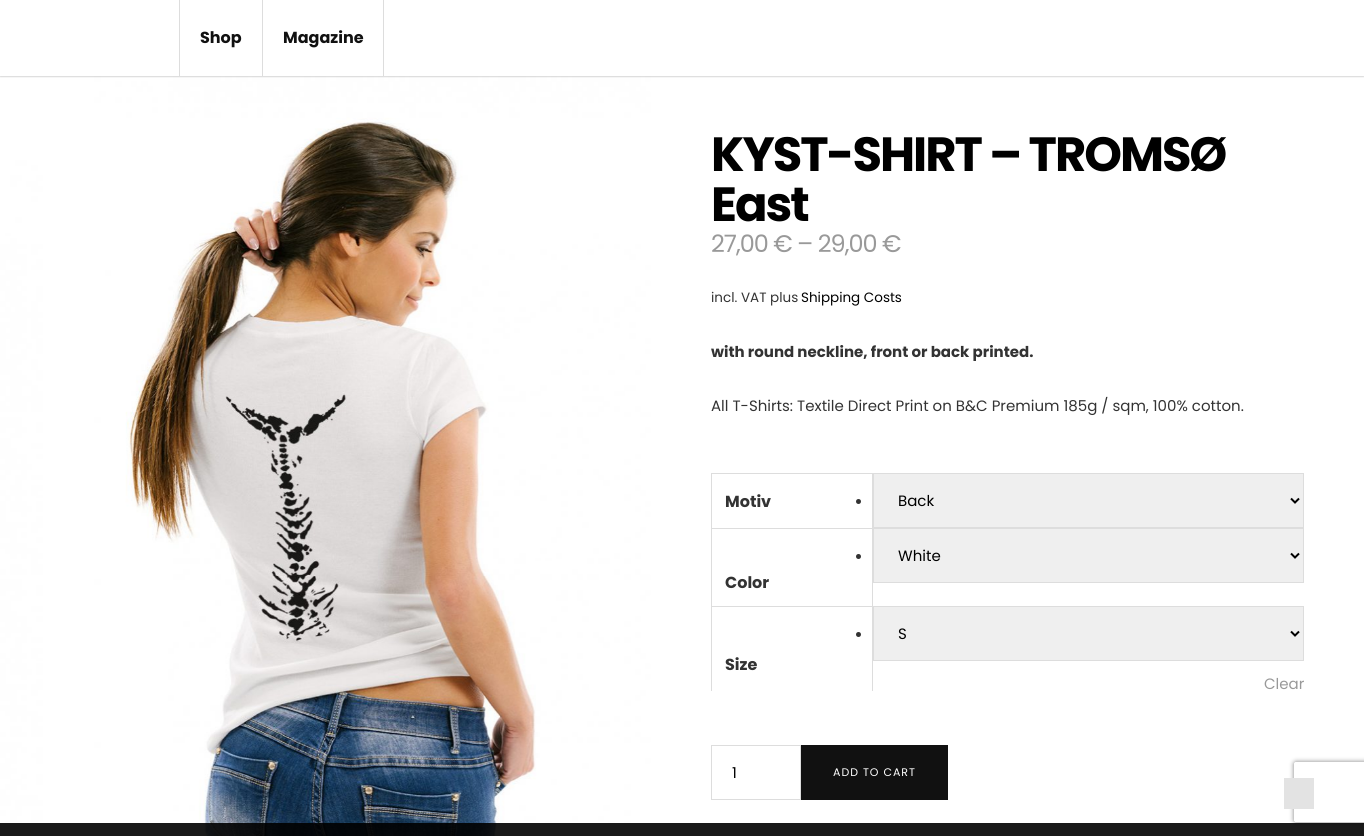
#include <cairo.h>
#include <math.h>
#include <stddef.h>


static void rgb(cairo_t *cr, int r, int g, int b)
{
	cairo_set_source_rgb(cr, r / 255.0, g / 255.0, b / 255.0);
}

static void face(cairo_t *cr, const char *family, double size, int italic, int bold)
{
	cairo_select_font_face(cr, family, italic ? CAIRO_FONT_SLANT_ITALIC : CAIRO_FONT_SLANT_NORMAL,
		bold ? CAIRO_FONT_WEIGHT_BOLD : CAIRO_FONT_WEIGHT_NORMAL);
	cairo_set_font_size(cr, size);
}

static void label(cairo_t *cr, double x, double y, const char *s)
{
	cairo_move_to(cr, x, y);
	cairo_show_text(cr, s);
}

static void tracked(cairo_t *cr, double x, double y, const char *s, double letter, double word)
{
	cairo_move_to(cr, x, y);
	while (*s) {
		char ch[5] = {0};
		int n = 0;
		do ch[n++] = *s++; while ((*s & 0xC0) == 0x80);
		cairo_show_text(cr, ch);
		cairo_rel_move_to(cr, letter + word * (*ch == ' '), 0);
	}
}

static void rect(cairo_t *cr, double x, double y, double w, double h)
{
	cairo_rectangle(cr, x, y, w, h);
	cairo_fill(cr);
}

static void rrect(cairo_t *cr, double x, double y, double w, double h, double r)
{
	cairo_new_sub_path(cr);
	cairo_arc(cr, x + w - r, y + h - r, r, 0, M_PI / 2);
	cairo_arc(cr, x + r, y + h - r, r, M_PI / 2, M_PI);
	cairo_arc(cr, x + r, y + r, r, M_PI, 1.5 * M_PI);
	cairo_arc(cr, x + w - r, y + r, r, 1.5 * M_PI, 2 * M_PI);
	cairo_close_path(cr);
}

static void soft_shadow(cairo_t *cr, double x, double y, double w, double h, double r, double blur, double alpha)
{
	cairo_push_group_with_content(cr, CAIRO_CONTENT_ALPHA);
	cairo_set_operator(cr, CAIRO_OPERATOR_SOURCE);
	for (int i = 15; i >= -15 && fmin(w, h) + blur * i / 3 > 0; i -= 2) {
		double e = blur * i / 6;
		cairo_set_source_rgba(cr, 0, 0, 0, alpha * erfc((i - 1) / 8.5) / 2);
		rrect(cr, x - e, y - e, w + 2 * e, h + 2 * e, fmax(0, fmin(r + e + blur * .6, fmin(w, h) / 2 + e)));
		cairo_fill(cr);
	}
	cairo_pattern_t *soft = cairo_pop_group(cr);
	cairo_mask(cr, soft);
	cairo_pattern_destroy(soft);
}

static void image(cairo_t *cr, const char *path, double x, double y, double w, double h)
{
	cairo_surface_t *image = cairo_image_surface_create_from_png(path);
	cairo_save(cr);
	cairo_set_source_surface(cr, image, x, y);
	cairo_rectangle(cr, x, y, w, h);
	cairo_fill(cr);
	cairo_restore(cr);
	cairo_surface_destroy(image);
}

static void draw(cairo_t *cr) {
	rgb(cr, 255, 255, 255);
	cairo_paint(cr);
	image(cr, "image0.png", 0, 76, 651, 760);
	rgb(cr, 0, 0, 0);
	soft_shadow(cr, 0, 1, 1364, 76, 0, 0.5, 0.15);
	rgb(cr, 255, 255, 255);
	rect(cr, 0, 0, 1364, 76);
	rgb(cr, 221, 221, 221);
	rect(cr, 179, 0, 1, 76);
	face(cr, "Poppins", 16, 0, 1);
	rgb(cr, 17, 17, 17);
	label(cr, 200, 43, "Shop");
	rgb(cr, 221, 221, 221);
	rect(cr, 383, 0, 1, 76);
	rect(cr, 262, 0, 1, 76);
	rgb(cr, 17, 17, 17);
	label(cr, 283, 43, "Magazine");
	face(cr, "Poppins", 48, 0, 1);
	rgb(cr, 0, 0, 0);
	tracked(cr, 711, 171, "KYST-SHIRT – TROMSØ", -2, 0);
	tracked(cr, 711, 221, "East", -2, 0);
	face(cr, "Poppins", 24, 0, 0);
	rgb(cr, 153, 153, 153);
	tracked(cr, 711, 252, "27,00 € – 29,00 €", -1, 0);
	face(cr, "Poppins", 13.5, 0, 0);
	rgb(cr, 51, 51, 51);
	label(cr, 711, 302, "incl. VAT plus");
	rgb(cr, 0, 0, 0);
	label(cr, 801, 302, "Shipping Costs");
	face(cr, "Poppins", 15, 0, 1);
	rgb(cr, 51, 51, 51);
	label(cr, 711, 357, "with round neckline, front or back printed.");
	face(cr, "Poppins", 15, 0, 0);
	label(cr, 711, 411, "All T-Shirts: Textile Direct Print on B&C Premium 185g / sqm, 100% cotton.");
	rgb(cr, 221, 221, 221);
	rect(cr, 711, 473, 162, 1);
	rect(cr, 872, 473, 1, 55);
	rect(cr, 711, 473, 1, 55);
	face(cr, "Poppins", 16, 0, 1);
	rgb(cr, 51, 51, 51);
	label(cr, 725, 507, "Motiv");
	cairo_new_path(cr);
	cairo_arc(cr, 858.5, 501.5, 2.5, 0, 2 * M_PI);
	cairo_fill(cr);
	rgb(cr, 239, 239, 239);
	cairo_rectangle(cr, 873.5, 473.5, 430, 54);
	cairo_fill_preserve(cr);
	rgb(cr, 221, 221, 221);
	cairo_set_line_width(cr, 1);
	cairo_stroke(cr);
	cairo_new_path(cr);
	cairo_move_to(cr, 1291, 498.5);
	cairo_line_to(cr, 1295, 502.5);
	cairo_line_to(cr, 1299, 498.5);
	rgb(cr, 0, 0, 0);
	cairo_set_line_width(cr, 2);
	cairo_stroke(cr);
	face(cr, "Poppins", 15, 0, 0);
	label(cr, 898, 506, "Back");
	rgb(cr, 51, 51, 51);
	cairo_new_path(cr);
	cairo_arc(cr, 858.5, 556.5, 2.5, 0, 2 * M_PI);
	cairo_fill(cr);
	rgb(cr, 239, 239, 239);
	cairo_rectangle(cr, 873.5, 528.5, 430, 54);
	cairo_fill_preserve(cr);
	rgb(cr, 221, 221, 221);
	cairo_set_line_width(cr, 1);
	cairo_stroke(cr);
	cairo_new_path(cr);
	cairo_move_to(cr, 1291, 553.5);
	cairo_line_to(cr, 1295, 557.5);
	cairo_line_to(cr, 1299, 553.5);
	rgb(cr, 0, 0, 0);
	cairo_set_line_width(cr, 2);
	cairo_stroke(cr);
	label(cr, 898, 561, "White");
	rgb(cr, 221, 221, 221);
	rect(cr, 711, 528, 162, 1);
	rect(cr, 872, 528, 1, 78);
	rect(cr, 711, 528, 1, 78);
	face(cr, "Poppins", 16, 0, 1);
	rgb(cr, 51, 51, 51);
	label(cr, 725, 588, "Color");
	rgb(cr, 221, 221, 221);
	rect(cr, 711, 606, 162, 1);
	rect(cr, 872, 606, 1, 85);
	rect(cr, 711, 606, 1, 85);
	rgb(cr, 51, 51, 51);
	label(cr, 725, 670, "Size");
	cairo_new_path(cr);
	cairo_arc(cr, 858.5, 634.5, 2.5, 0, 2 * M_PI);
	cairo_fill(cr);
	rgb(cr, 239, 239, 239);
	cairo_rectangle(cr, 873.5, 606.5, 430, 54);
	cairo_fill_preserve(cr);
	rgb(cr, 221, 221, 221);
	cairo_set_line_width(cr, 1);
	cairo_stroke(cr);
	cairo_new_path(cr);
	cairo_move_to(cr, 1291, 631.5);
	cairo_line_to(cr, 1295, 635.5);
	cairo_line_to(cr, 1299, 631.5);
	rgb(cr, 0, 0, 0);
	cairo_set_line_width(cr, 2);
	cairo_stroke(cr);
	face(cr, "Poppins", 15, 0, 0);
	label(cr, 898, 639, "S");
	rgb(cr, 153, 153, 153);
	label(cr, 1264, 689, "Clear");
	cairo_rectangle(cr, 711.5, 745.5, 89, 54);
	rgb(cr, 221, 221, 221);
	cairo_set_line_width(cr, 1);
	cairo_stroke(cr);
	rgb(cr, 0, 0, 0);
	label(cr, 732, 778, "1");
	rgb(cr, 17, 17, 17);
	rect(cr, 801, 745, 147, 55);
	face(cr, "Poppins", 11, 0, 0);
	rgb(cr, 255, 255, 255);
	tracked(cr, 833, 776, "ADD TO CART", 1, 0);
	cairo_save(cr);
	cairo_set_fill_rule(cr, CAIRO_FILL_RULE_EVEN_ODD);
	cairo_new_path(cr);
	cairo_move_to(cr, 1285, 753);
	cairo_line_to(cr, 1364, 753);
	cairo_line_to(cr, 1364, 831);
	cairo_line_to(cr, 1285, 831);
	cairo_close_path(cr);
	cairo_move_to(cr, 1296, 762);
	cairo_line_to(cr, 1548, 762);
	cairo_curve_to(cr, 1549, 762, 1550, 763, 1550, 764);
	cairo_line_to(cr, 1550, 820);
	cairo_curve_to(cr, 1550, 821, 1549, 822, 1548, 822);
	cairo_line_to(cr, 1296, 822);
	cairo_curve_to(cr, 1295, 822, 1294, 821, 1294, 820);
	cairo_line_to(cr, 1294, 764);
	cairo_curve_to(cr, 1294, 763, 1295, 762, 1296, 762);
	cairo_close_path(cr);
	cairo_clip(cr);
	rgb(cr, 128, 128, 128);
	soft_shadow(cr, 1294, 762, 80, 60, 2, 2.5, 1);
	cairo_restore(cr);
	rgb(cr, 227, 227, 227);
	rect(cr, 1284, 778, 30, 31);
	cairo_set_source_rgba(cr, 0, 0, 0, 0.9);
	rect(cr, 0, 823, 1364, 13);
}

int main(void) {
	cairo_surface_t *surface = cairo_image_surface_create(CAIRO_FORMAT_RGB24, 1364, 836);
	cairo_t *cr = cairo_create(surface);
	cairo_font_options_t *options = cairo_font_options_create();
	cairo_font_options_set_hint_metrics(options, CAIRO_HINT_METRICS_OFF);
	cairo_font_options_set_hint_style(options, CAIRO_HINT_STYLE_NONE);
	cairo_set_font_options(cr, options);
	cairo_set_miter_limit(cr, 4);
	draw(cr);
	cairo_surface_write_to_png(surface, "render.png");
	cairo_font_options_destroy(options);
	cairo_destroy(cr);
	cairo_surface_destroy(surface);
	return 0;
}
